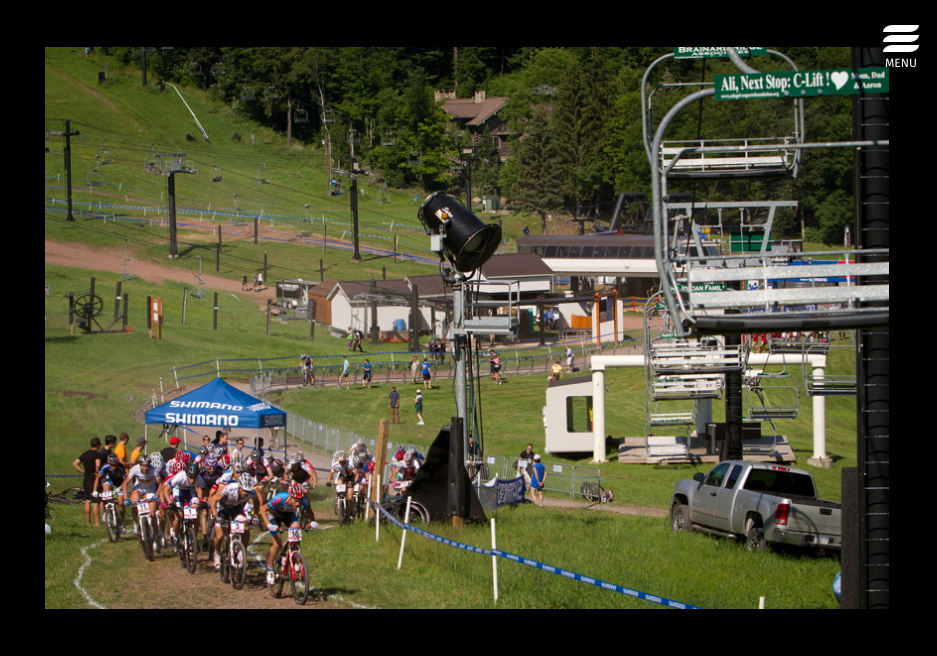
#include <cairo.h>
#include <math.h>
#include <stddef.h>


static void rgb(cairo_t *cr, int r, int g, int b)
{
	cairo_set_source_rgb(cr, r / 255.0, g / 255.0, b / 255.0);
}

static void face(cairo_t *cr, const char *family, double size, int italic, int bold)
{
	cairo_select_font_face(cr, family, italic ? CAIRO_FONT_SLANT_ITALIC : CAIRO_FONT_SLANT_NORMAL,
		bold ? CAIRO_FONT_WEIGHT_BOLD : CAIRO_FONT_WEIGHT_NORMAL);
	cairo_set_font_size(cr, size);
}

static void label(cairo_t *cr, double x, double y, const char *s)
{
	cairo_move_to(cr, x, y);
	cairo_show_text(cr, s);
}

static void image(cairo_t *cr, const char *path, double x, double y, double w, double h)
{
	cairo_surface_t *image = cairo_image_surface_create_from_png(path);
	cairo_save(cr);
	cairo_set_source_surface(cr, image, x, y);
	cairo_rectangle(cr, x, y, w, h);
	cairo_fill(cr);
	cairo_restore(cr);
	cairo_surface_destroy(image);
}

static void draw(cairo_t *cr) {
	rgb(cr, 0, 0, 0);
	cairo_paint(cr);
	image(cr, "image0.png", 45, 47, 844, 562);
	rgb(cr, 255, 255, 255);
	cairo_new_path(cr);
	cairo_move_to(cr, 893, 35);
	cairo_line_to(cr, 919, 35);
	cairo_curve_to(cr, 919, 39, 914.5, 42, 909, 42);
	cairo_line_to(cr, 883, 42);
	cairo_curve_to(cr, 883, 38, 887.5, 35, 893, 35);
	cairo_close_path(cr);
	cairo_move_to(cr, 893, 25);
	cairo_line_to(cr, 919, 25);
	cairo_curve_to(cr, 919, 29, 914.5, 32, 909, 32);
	cairo_line_to(cr, 883, 32);
	cairo_curve_to(cr, 883, 28, 887.5, 25, 893, 25);
	cairo_close_path(cr);
	cairo_move_to(cr, 893, 45);
	cairo_line_to(cr, 919, 45);
	cairo_curve_to(cr, 919, 49, 914.5, 52, 909, 52);
	cairo_line_to(cr, 883, 52);
	cairo_curve_to(cr, 883, 48, 887.5, 45, 893, 45);
	cairo_close_path(cr);
	cairo_fill(cr);
	face(cr, "Fira Sans", 12, 0, 0);
	label(cr, 885, 67, "MENU");
}

int main(void) {
	cairo_surface_t *surface = cairo_image_surface_create(CAIRO_FORMAT_RGB24, 937, 656);
	cairo_t *cr = cairo_create(surface);
	cairo_font_options_t *options = cairo_font_options_create();
	cairo_font_options_set_hint_metrics(options, CAIRO_HINT_METRICS_OFF);
	cairo_font_options_set_hint_style(options, CAIRO_HINT_STYLE_NONE);
	cairo_set_font_options(cr, options);
	cairo_set_miter_limit(cr, 4);
	draw(cr);
	cairo_surface_write_to_png(surface, "render.png");
	cairo_font_options_destroy(options);
	cairo_destroy(cr);
	cairo_surface_destroy(surface);
	return 0;
}
